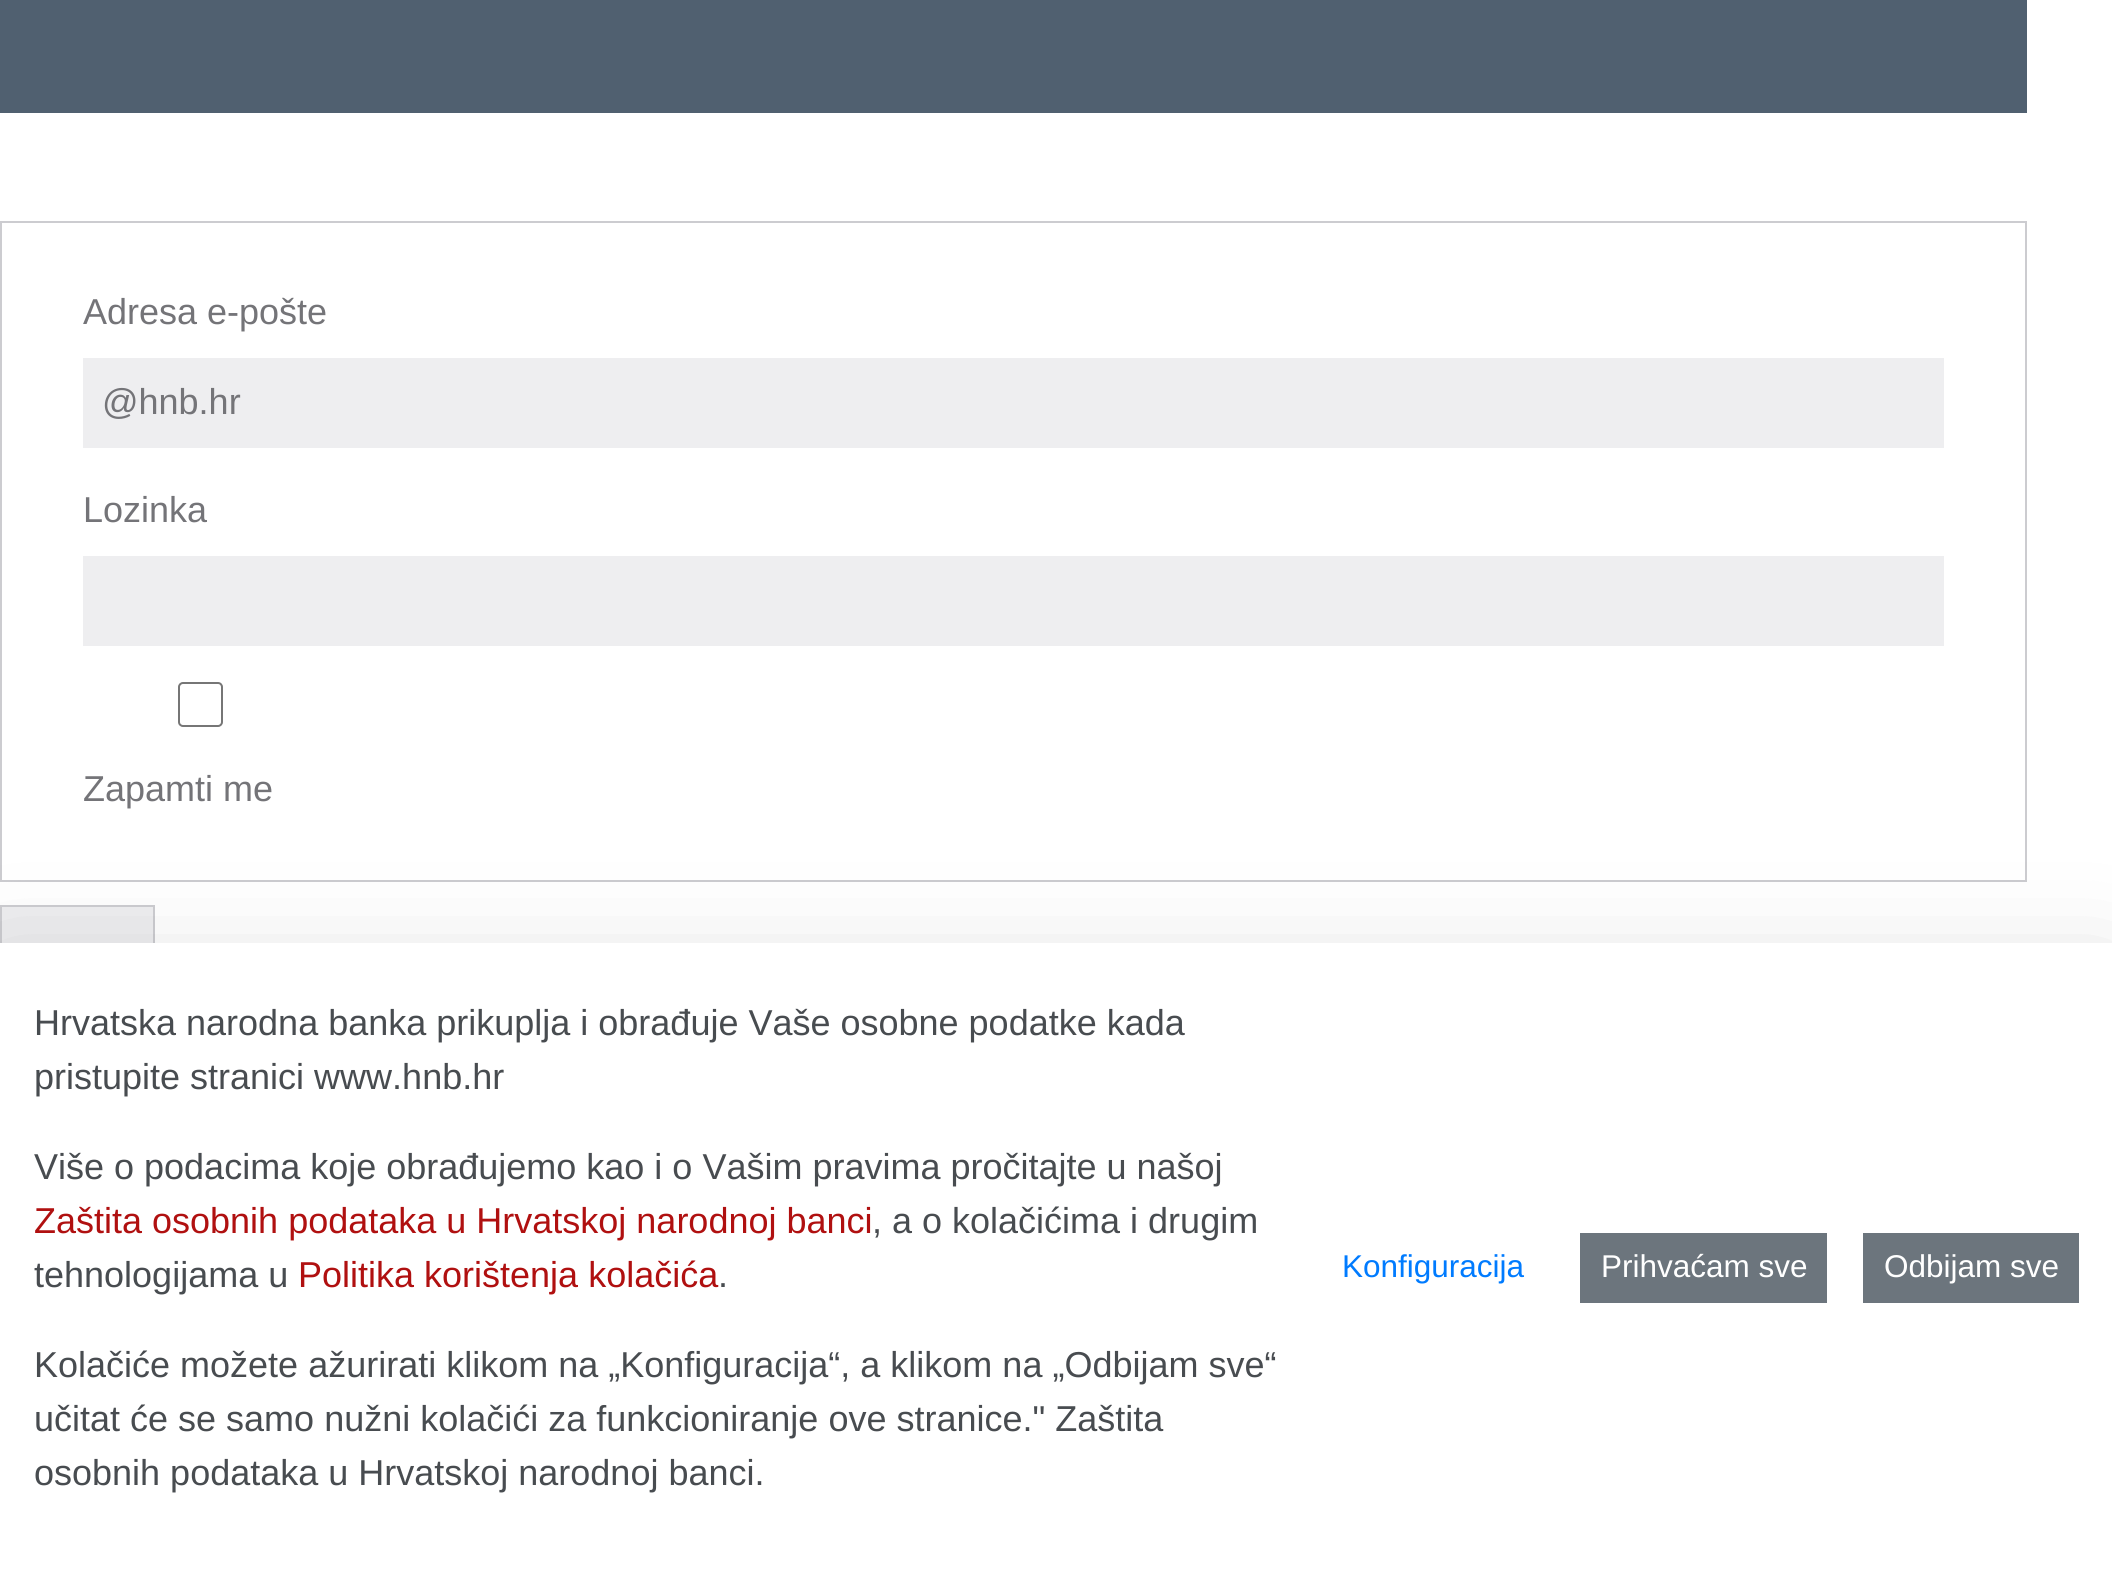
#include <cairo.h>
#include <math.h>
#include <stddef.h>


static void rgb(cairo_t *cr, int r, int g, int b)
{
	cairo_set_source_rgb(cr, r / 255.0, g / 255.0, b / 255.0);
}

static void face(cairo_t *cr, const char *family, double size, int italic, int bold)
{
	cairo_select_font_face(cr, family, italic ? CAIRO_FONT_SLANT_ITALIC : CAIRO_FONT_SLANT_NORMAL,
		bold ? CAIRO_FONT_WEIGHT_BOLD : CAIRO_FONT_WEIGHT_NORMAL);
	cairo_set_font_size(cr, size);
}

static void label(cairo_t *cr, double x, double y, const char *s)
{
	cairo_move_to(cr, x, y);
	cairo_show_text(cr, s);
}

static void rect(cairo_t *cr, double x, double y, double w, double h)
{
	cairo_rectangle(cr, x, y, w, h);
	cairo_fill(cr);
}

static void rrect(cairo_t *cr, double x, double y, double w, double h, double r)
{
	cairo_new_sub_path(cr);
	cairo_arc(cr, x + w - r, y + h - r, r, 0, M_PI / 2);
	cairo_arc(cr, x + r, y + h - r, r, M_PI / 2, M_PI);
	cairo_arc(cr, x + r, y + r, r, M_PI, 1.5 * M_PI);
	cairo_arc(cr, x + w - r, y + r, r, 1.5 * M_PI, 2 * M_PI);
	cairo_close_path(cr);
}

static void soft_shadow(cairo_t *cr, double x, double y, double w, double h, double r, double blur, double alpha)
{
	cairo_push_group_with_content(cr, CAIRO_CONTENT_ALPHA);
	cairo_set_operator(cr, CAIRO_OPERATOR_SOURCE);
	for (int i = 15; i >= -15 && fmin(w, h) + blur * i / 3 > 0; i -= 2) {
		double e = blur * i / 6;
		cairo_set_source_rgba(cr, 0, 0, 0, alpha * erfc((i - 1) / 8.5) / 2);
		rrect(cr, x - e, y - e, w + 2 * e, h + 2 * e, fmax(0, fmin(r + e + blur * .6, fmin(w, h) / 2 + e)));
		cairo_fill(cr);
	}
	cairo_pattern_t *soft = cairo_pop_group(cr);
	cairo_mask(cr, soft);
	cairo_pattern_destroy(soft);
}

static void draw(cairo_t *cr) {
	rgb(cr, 255, 255, 255);
	cairo_paint(cr);
	rgb(cr, 80, 96, 112);
	rect(cr, 0, 0, 2027, 113);
	cairo_rectangle(cr, 1, 222, 2025, 659);
	rgb(cr, 204, 204, 208);
	cairo_stroke(cr);
	face(cr, "Liberation Sans", 36, 0, 0);
	rgb(cr, 116, 116, 120);
	label(cr, 83, 324, "Adresa e-pošte");
	rgb(cr, 238, 238, 240);
	rect(cr, 83, 358, 1861, 90);
	rgb(cr, 116, 116, 120);
	label(cr, 102, 414, "@hnb.hr");
	label(cr, 83, 522, "Lozinka");
	rgb(cr, 238, 238, 240);
	rect(cr, 83, 556, 1861, 90);
	rrect(cr, 179, 683, 43, 43, 4);
	rgb(cr, 118, 118, 118);
	cairo_stroke(cr);
	rgb(cr, 116, 116, 120);
	label(cr, 83, 801, "Zapamti me");
	rgb(cr, 238, 238, 240);
	rect(cr, 2, 907, 151, 36);
	cairo_rectangle(cr, 1, 906, 153, 70);
	rgb(cr, 204, 204, 208);
	cairo_stroke(cr);
	rgb(cr, 0, 0, 0);
	soft_shadow(cr, 0, 979, 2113, 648, 0, 54, 0.18);
	rgb(cr, 255, 255, 255);
	rect(cr, 0, 943, 2112, 647);
	rgb(cr, 72, 76, 80);
	label(cr, 34, 1035, "Hrvatska narodna banka prikuplja i obrađuje Vaše osobne podatke kada");
	label(cr, 34, 1089, "pristupite stranici www.hnb.hr");
	label(cr, 34, 1179, "Više o podacima koje obrađujemo kao i o Vašim pravima pročitajte u našoj");
	rgb(cr, 176, 16, 16);
	label(cr, 34, 1233, "Zaštita osobnih podataka u Hrvatskoj narodnoj banci");
	rgb(cr, 72, 76, 80);
	label(cr, 872, 1233, ", a o kolačićima i drugim");
	label(cr, 34, 1287, "tehnologijama u");
	rgb(cr, 176, 16, 16);
	label(cr, 298, 1287, "Politika korištenja kolačića");
	rgb(cr, 72, 76, 80);
	label(cr, 718, 1287, ".");
	label(cr, 34, 1377, "Kolačiće možete ažurirati klikom na „Konfiguracija“, a klikom na „Odbijam sve“");
	label(cr, 34, 1431, "učitat će se samo nužni kolačići za funkcioniranje ove stranice.\" Zaštita");
	label(cr, 34, 1485, "osobnih podataka u Hrvatskoj narodnoj banci.");
	face(cr, "Liberation Sans", 31.5, 0, 0);
	rgb(cr, 0, 123, 255);
	label(cr, 1342, 1277, "Konfiguracija");
	rgb(cr, 108, 117, 125);
	rect(cr, 1580, 1233, 247, 70);
	rgb(cr, 255, 255, 255);
	label(cr, 1601, 1277, "Prihvaćam sve");
	rgb(cr, 108, 117, 125);
	rect(cr, 1863, 1233, 216, 70);
	rgb(cr, 255, 255, 255);
	label(cr, 1884, 1277, "Odbijam sve");
}

int main(void) {
	cairo_surface_t *surface = cairo_image_surface_create(CAIRO_FORMAT_RGB24, 2112, 1590);
	cairo_t *cr = cairo_create(surface);
	cairo_font_options_t *options = cairo_font_options_create();
	cairo_font_options_set_hint_metrics(options, CAIRO_HINT_METRICS_OFF);
	cairo_font_options_set_hint_style(options, CAIRO_HINT_STYLE_NONE);
	cairo_set_font_options(cr, options);
	cairo_set_miter_limit(cr, 4);
	draw(cr);
	cairo_surface_write_to_png(surface, "render.png");
	cairo_font_options_destroy(options);
	cairo_destroy(cr);
	cairo_surface_destroy(surface);
	return 0;
}
